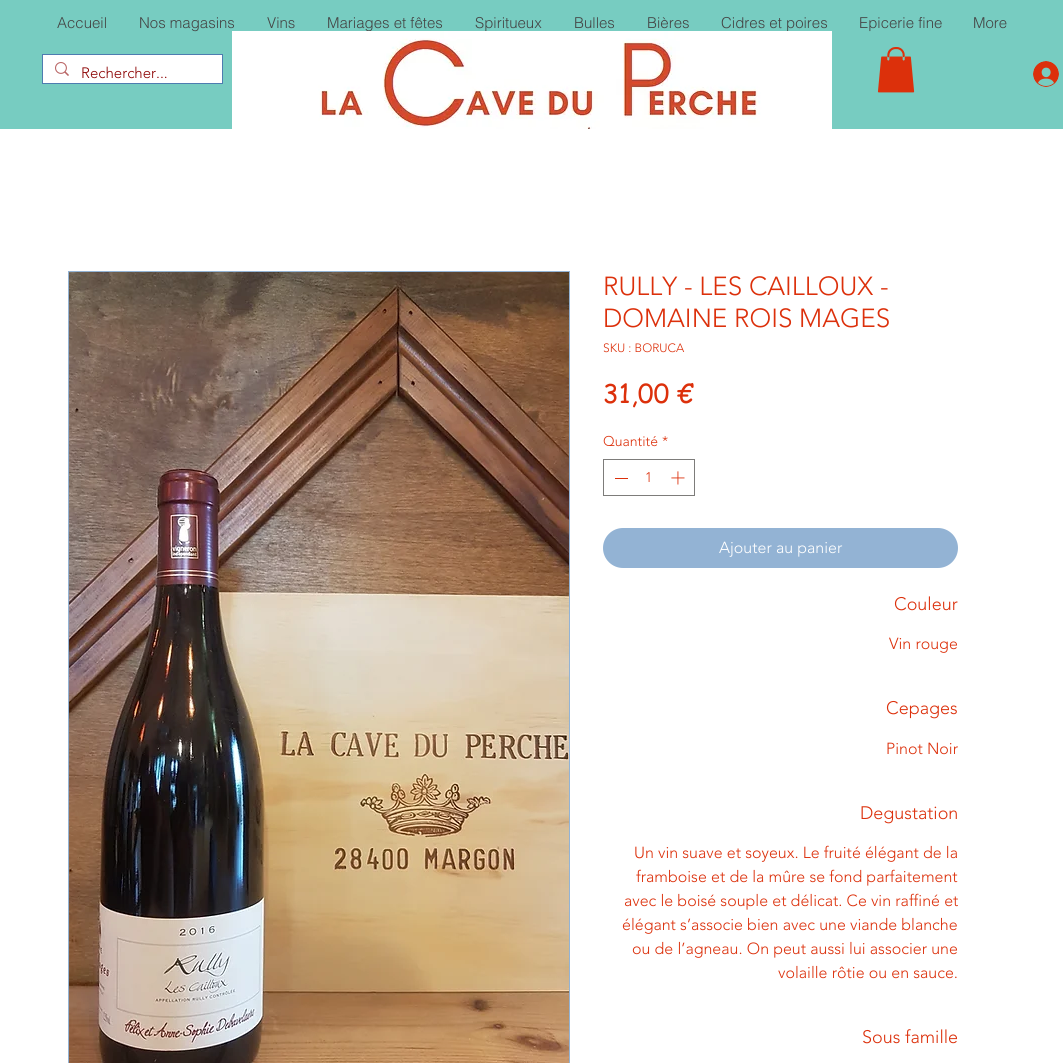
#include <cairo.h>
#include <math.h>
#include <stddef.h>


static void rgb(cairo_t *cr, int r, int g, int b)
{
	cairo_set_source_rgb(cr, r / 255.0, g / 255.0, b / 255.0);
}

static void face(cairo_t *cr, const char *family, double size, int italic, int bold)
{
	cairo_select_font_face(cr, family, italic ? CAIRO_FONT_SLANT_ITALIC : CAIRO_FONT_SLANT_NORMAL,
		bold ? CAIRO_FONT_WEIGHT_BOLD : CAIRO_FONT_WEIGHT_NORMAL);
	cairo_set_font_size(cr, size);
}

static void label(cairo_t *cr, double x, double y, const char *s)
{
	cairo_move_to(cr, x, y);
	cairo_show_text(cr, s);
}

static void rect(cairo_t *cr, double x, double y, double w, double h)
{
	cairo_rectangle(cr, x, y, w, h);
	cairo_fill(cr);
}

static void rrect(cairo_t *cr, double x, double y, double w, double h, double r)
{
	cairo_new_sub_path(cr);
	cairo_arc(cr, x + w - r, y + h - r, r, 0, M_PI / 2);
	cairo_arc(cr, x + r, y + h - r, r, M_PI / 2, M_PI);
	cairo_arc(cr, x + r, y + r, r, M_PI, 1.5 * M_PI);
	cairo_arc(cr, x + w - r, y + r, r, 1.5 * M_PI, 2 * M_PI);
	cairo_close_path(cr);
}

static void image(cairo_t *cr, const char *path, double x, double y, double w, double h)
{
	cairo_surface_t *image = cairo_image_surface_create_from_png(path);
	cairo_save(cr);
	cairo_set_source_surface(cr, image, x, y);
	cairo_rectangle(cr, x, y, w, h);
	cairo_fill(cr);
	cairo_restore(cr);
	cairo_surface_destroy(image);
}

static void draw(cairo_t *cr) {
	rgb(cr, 119, 204, 193);
	cairo_paint(cr);
	face(cr, "helvetica Light", 15, 0, 0);
	rgb(cr, 68, 68, 68);
	label(cr, 57, 28, "Accueil");
	label(cr, 139, 28, "Nos magasins");
	label(cr, 267, 28, "Vins");
	label(cr, 327, 28, "Mariages et fêtes");
	label(cr, 475, 28, "Spiritueux");
	label(cr, 574, 28, "Bulles");
	label(cr, 647, 28, "Bières");
	label(cr, 721, 28, "Cidres et poires");
	label(cr, 859, 28, "Epicerie fine");
	label(cr, 973, 28, "More");
	cairo_rectangle(cr, 42.5, 54.5, 180, 29);
	rgb(cr, 78, 124, 176);
	cairo_set_line_width(cr, 1);
	cairo_stroke(cr);
	rgb(cr, 255, 255, 255);
	rect(cr, 43, 55, 179, 28);
	image(cr, "image0.png", 55, 62, 14, 14);
	face(cr, "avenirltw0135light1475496 Light", 15, 0, 0);
	rgb(cr, 139, 0, 0);
	label(cr, 81, 78, "Rechercher...");
	image(cr, "image1.png", 232, 31, 600, 98);
	image(cr, "image2.png", 877, 47, 38, 46);
	image(cr, "image3.png", 1033, 61, 26, 26);
	rgb(cr, 255, 255, 255);
	rect(cr, 0, 129, 1063, 934);
	cairo_rectangle(cr, 68.5, 271.5, 501, 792);
	rgb(cr, 147, 179, 212);
	cairo_stroke(cr);
	image(cr, "image4.png", 69, 272, 500, 791);
	face(cr, "avenirltw0135light1475496 Light", 26, 0, 0);
	rgb(cr, 220, 48, 11);
	label(cr, 603, 295, "RULLY - LES CAILLOUX -");
	label(cr, 603, 327, "DOMAINE ROIS MAGES");
	face(cr, "avenirltw0135light1475496 Light", 12, 0, 0);
	label(cr, 603, 352, "SKU : BORUCA");
	face(cr, "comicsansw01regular", 26, 0, 0);
	label(cr, 603, 403, "31,00 €");
	face(cr, "avenirltw0135light1475496 Light", 14, 0, 0);
	label(cr, 603, 446, "Quantité");
	label(cr, 662, 446, "*");
	cairo_rectangle(cr, 603.5, 459.5, 91, 36);
	rgb(cr, 125, 124, 122);
	cairo_stroke(cr);
	rgb(cr, 220, 48, 11);
	rect(cr, 615, 478, 13, 1);
	label(cr, 645, 482, "1");
	image(cr, "image5.png", 671, 471, 14, 14);
	rgb(cr, 147, 179, 212);
	rrect(cr, 603, 528, 355, 40, 20);
	cairo_fill(cr);
	face(cr, "avenirltw0135light1475496 Light", 16, 0, 0);
	rgb(cr, 255, 255, 255);
	label(cr, 719, 553, "Ajouter au panier");
	face(cr, "avenirltw0135light1475496 Light", 18, 0, 0);
	rgb(cr, 220, 48, 11);
	label(cr, 894, 610, "Couleur");
	face(cr, "avenirltw0135light1475496 Light", 16, 0, 0);
	label(cr, 889, 649, "Vin rouge");
	face(cr, "avenirltw0135light1475496 Light", 18, 0, 0);
	label(cr, 886, 714, "Cepages");
	face(cr, "avenirltw0135light1475496 Light", 16, 0, 0);
	label(cr, 886, 754, "Pinot Noir");
	face(cr, "avenirltw0135light1475496 Light", 18, 0, 0);
	label(cr, 860, 819, "Degustation");
	face(cr, "avenirltw0135light1475496 Light", 16, 0, 0);
	label(cr, 634, 858, "Un vin suave et soyeux. Le fruité élégant de la");
	label(cr, 636, 882, "framboise et de la mûre se fond parfaitement");
	label(cr, 624, 906, "avec le boisé souple et délicat. Ce vin raffiné et");
	label(cr, 622, 930, "élégant s’associe bien avec une viande blanche");
	label(cr, 632, 954, "ou de l’agneau. On peut aussi lui associer une");
	label(cr, 778, 978, "volaille rôtie ou en sauce.");
	face(cr, "avenirltw0135light1475496 Light", 18, 0, 0);
	label(cr, 862, 1043, "Sous famille");
}

int main(void) {
	cairo_surface_t *surface = cairo_image_surface_create(CAIRO_FORMAT_RGB24, 1063, 1063);
	cairo_t *cr = cairo_create(surface);
	cairo_font_options_t *options = cairo_font_options_create();
	cairo_font_options_set_hint_metrics(options, CAIRO_HINT_METRICS_OFF);
	cairo_font_options_set_hint_style(options, CAIRO_HINT_STYLE_NONE);
	cairo_set_font_options(cr, options);
	cairo_set_miter_limit(cr, 4);
	draw(cr);
	cairo_surface_write_to_png(surface, "render.png");
	cairo_font_options_destroy(options);
	cairo_destroy(cr);
	cairo_surface_destroy(surface);
	return 0;
}
